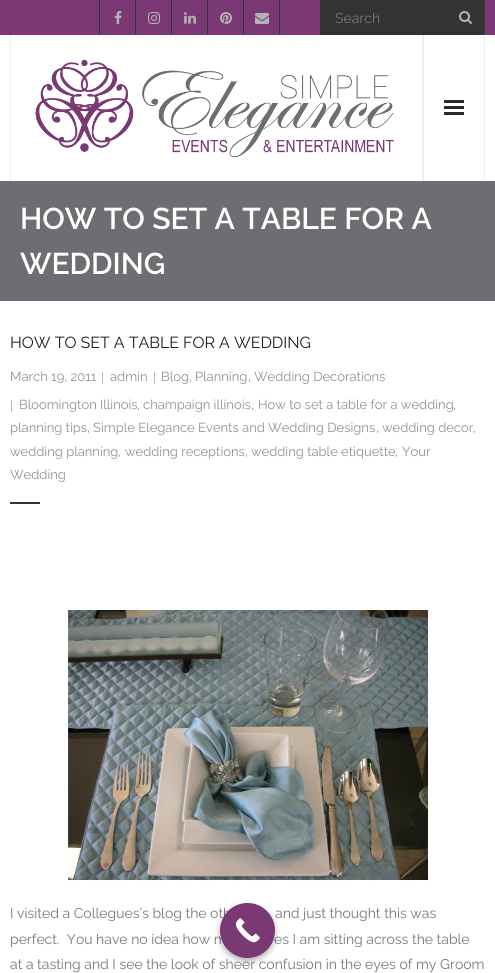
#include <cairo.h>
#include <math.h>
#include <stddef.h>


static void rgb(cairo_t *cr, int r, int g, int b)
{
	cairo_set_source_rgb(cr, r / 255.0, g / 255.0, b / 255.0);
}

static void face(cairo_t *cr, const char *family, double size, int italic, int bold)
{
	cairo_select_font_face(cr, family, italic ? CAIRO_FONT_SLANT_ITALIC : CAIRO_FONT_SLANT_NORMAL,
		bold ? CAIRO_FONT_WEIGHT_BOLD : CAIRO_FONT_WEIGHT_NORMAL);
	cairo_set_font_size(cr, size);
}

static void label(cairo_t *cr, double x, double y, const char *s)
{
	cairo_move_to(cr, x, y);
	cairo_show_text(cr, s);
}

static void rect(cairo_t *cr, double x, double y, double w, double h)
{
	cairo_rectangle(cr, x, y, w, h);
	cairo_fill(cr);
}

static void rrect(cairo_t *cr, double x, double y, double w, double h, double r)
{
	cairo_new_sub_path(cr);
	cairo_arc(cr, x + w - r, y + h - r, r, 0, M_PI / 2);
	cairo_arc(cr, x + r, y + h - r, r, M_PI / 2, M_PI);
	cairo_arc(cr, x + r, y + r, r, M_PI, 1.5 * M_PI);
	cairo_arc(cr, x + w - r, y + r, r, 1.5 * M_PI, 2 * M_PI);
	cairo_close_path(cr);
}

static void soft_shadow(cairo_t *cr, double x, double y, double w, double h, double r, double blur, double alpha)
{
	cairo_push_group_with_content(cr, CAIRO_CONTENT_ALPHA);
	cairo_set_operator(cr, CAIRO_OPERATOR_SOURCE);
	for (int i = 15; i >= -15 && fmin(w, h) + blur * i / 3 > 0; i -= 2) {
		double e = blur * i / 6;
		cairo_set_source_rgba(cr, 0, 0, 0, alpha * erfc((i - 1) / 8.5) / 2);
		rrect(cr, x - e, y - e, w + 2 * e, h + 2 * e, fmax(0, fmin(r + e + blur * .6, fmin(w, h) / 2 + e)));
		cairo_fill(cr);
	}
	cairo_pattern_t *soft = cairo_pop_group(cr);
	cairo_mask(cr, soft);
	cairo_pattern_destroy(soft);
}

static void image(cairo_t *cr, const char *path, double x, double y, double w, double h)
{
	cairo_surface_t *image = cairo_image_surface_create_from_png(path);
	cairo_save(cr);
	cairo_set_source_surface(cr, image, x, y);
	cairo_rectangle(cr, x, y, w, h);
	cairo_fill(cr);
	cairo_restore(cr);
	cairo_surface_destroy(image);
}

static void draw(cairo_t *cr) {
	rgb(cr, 255, 255, 255);
	cairo_paint(cr);
	rgb(cr, 122, 56, 116);
	rect(cr, 0, 0, 495, 35);
	rgb(cr, 51, 51, 51);
	rect(cr, 99, 0, 1, 35);
	image(cr, "image0.png", 114, 11, 8, 13);
	rect(cr, 135, 0, 1, 35);
	image(cr, "image1.png", 148, 12, 12, 12);
	rect(cr, 171, 0, 1, 35);
	image(cr, "image2.png", 184, 12, 12, 12);
	rect(cr, 207, 0, 1, 35);
	image(cr, "image3.png", 220, 12, 12, 12);
	rect(cr, 279, 0, 1, 35);
	rect(cr, 243, 0, 1, 35);
	image(cr, "image4.png", 255, 13, 14, 11);
	rect(cr, 320, 0, 165, 35);
	face(cr, "Raleway", 14, 0, 0);
	rgb(cr, 119, 119, 119);
	label(cr, 335, 23, "Search");
	image(cr, "image5.png", 459, 11, 13, 13);
	rgb(cr, 238, 238, 238);
	rect(cr, 422, 35, 2, 146);
	rect(cr, 10, 35, 1, 146);
	image(cr, "image6.png", 35, 59, 359, 99);
	rect(cr, 484, 35, 1, 146);
	rgb(cr, 41, 41, 41);
	rect(cr, 444, 100, 20, 3);
	rect(cr, 444, 106, 20, 3);
	rect(cr, 444, 112, 20, 3);
	rgb(cr, 109, 110, 113);
	rect(cr, 0, 181, 495, 120);
	face(cr, "Raleway SemiBold", 30, 0, 0);
	rgb(cr, 255, 255, 255);
	label(cr, 20, 229, "HOW TO SET A TABLE FOR A");
	label(cr, 20, 274, "WEDDING");
	face(cr, "Raleway", 16, 0, 0);
	rgb(cr, 30, 30, 30);
	label(cr, 10, 348, "HOW TO SET A TABLE FOR A WEDDING");
	face(cr, "Raleway", 13, 0, 0);
	rgb(cr, 145, 145, 145);
	label(cr, 10, 381, "March 19, 2011");
	face(cr, "Liberation Serif", 13, 0, 0);
	label(cr, 101, 381, "|");
	face(cr, "Raleway", 13, 0, 0);
	label(cr, 110, 381, "admin");
	face(cr, "Liberation Serif", 13, 0, 0);
	label(cr, 153, 381, "|");
	face(cr, "Raleway", 13, 0, 0);
	label(cr, 161, 381, "Blog");
	rgb(cr, 133, 133, 133);
	label(cr, 189, 381, ",");
	rgb(cr, 145, 145, 145);
	label(cr, 195, 381, "Planning");
	rgb(cr, 133, 133, 133);
	label(cr, 248, 381, ",");
	rgb(cr, 145, 145, 145);
	label(cr, 254, 381, "Wedding Decorations");
	face(cr, "Liberation Serif", 13, 0, 0);
	label(cr, 10, 409, "|");
	face(cr, "Raleway", 13, 0, 0);
	label(cr, 19, 409, "Bloomington Illinois");
	rgb(cr, 133, 133, 133);
	label(cr, 137, 409, ",");
	rgb(cr, 145, 145, 145);
	label(cr, 143, 409, "champaign illinois");
	rgb(cr, 133, 133, 133);
	label(cr, 251, 409, ",");
	rgb(cr, 145, 145, 145);
	label(cr, 258, 409, "How to set a table for a wedding");
	rgb(cr, 133, 133, 133);
	label(cr, 453, 409, ",");
	rgb(cr, 145, 145, 145);
	label(cr, 10, 432, "planning tips");
	rgb(cr, 133, 133, 133);
	label(cr, 87, 432, ",");
	rgb(cr, 145, 145, 145);
	label(cr, 93, 432, "Simple Elegance Events and Wedding Designs");
	rgb(cr, 133, 133, 133);
	label(cr, 376, 432, ",");
	rgb(cr, 145, 145, 145);
	label(cr, 382, 432, "wedding decor");
	rgb(cr, 133, 133, 133);
	label(cr, 473, 432, ",");
	rgb(cr, 145, 145, 145);
	label(cr, 10, 456, "wedding planning");
	rgb(cr, 133, 133, 133);
	label(cr, 118, 456, ",");
	rgb(cr, 145, 145, 145);
	label(cr, 125, 456, "wedding receptions");
	rgb(cr, 133, 133, 133);
	label(cr, 245, 456, ",");
	rgb(cr, 145, 145, 145);
	label(cr, 251, 456, "wedding table etiquette");
	rgb(cr, 133, 133, 133);
	label(cr, 395, 456, ",");
	rgb(cr, 145, 145, 145);
	label(cr, 402, 456, "Your");
	label(cr, 10, 479, "Wedding");
	rgb(cr, 53, 53, 53);
	rect(cr, 10, 502, 30, 2);
	image(cr, "image7.png", 67, 609, 362, 272);
	face(cr, "Raleway", 14, 0, 0);
	rgb(cr, 119, 119, 119);
	label(cr, 10, 918, "I visited a Collegues’s blog the oth");
	label(cr, 275, 918, "and just thought this was");
	label(cr, 10, 944, "perfect.  You have no idea how m");
	label(cr, 274, 944, "es I am sitting across the table");
	label(cr, 10, 969, "at a tasting and I see the look of sheer confusion in the eyes of my Groom");
	rgb(cr, 0, 0, 0);
	soft_shadow(cr, 220, 906, 55, 55, 27.5, 3, 0.3);
	rgb(cr, 122, 56, 116);
	cairo_arc(cr, 247.5, 930.5, 27.5, 0, 2 * M_PI);
	cairo_fill(cr);
	image(cr, "image8.png", 235, 918, 25, 25);
}

int main(void) {
	cairo_surface_t *surface = cairo_image_surface_create(CAIRO_FORMAT_RGB24, 495, 973);
	cairo_t *cr = cairo_create(surface);
	cairo_font_options_t *options = cairo_font_options_create();
	cairo_font_options_set_hint_metrics(options, CAIRO_HINT_METRICS_OFF);
	cairo_font_options_set_hint_style(options, CAIRO_HINT_STYLE_NONE);
	cairo_set_font_options(cr, options);
	cairo_set_miter_limit(cr, 4);
	draw(cr);
	cairo_surface_write_to_png(surface, "render.png");
	cairo_font_options_destroy(options);
	cairo_destroy(cr);
	cairo_surface_destroy(surface);
	return 0;
}
